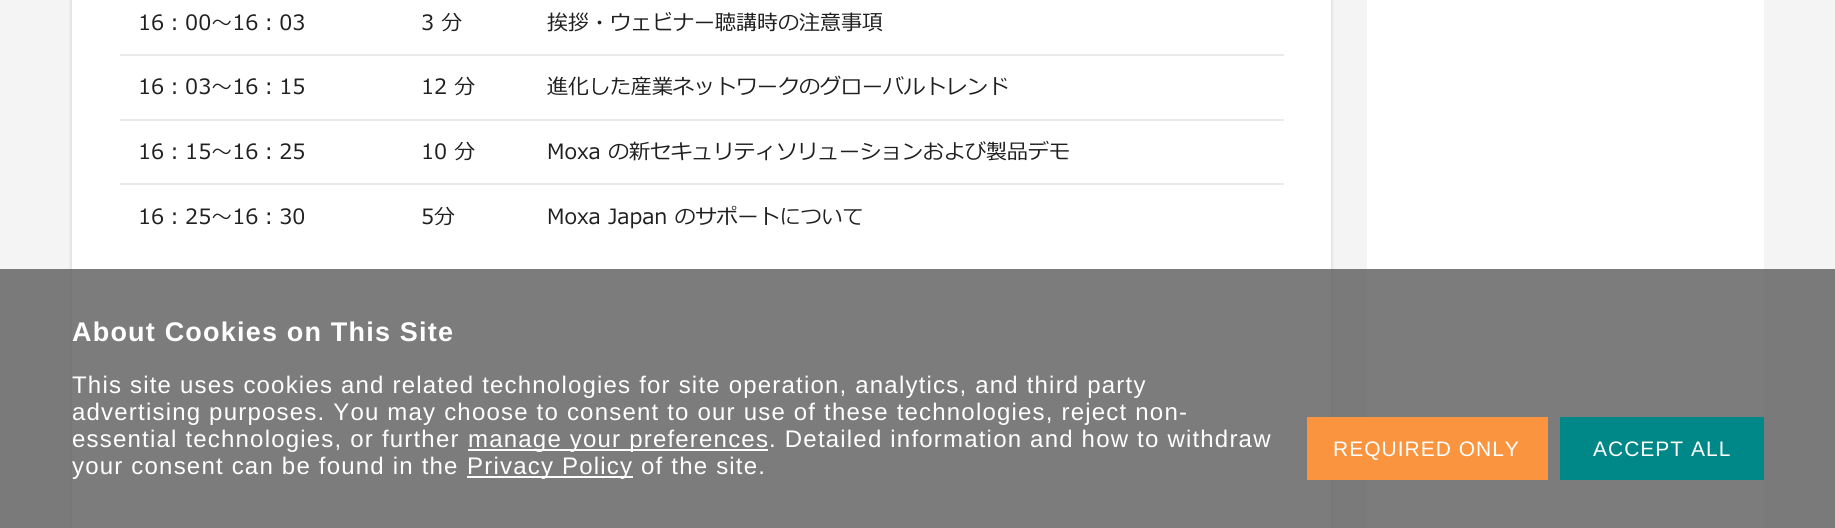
#include <cairo.h>
#include <math.h>
#include <stddef.h>


static void rgb(cairo_t *cr, int r, int g, int b)
{
	cairo_set_source_rgb(cr, r / 255.0, g / 255.0, b / 255.0);
}

static void face(cairo_t *cr, const char *family, double size, int italic, int bold)
{
	cairo_select_font_face(cr, family, italic ? CAIRO_FONT_SLANT_ITALIC : CAIRO_FONT_SLANT_NORMAL,
		bold ? CAIRO_FONT_WEIGHT_BOLD : CAIRO_FONT_WEIGHT_NORMAL);
	cairo_set_font_size(cr, size);
}

static void label(cairo_t *cr, double x, double y, const char *s)
{
	cairo_move_to(cr, x, y);
	cairo_show_text(cr, s);
}

static void tracked(cairo_t *cr, double x, double y, const char *s, double letter, double word)
{
	cairo_move_to(cr, x, y);
	while (*s) {
		char ch[5] = {0};
		int n = 0;
		do ch[n++] = *s++; while ((*s & 0xC0) == 0x80);
		cairo_show_text(cr, ch);
		cairo_rel_move_to(cr, letter + word * (*ch == ' '), 0);
	}
}

static void rect(cairo_t *cr, double x, double y, double w, double h)
{
	cairo_rectangle(cr, x, y, w, h);
	cairo_fill(cr);
}

static void rrect(cairo_t *cr, double x, double y, double w, double h, double r)
{
	cairo_new_sub_path(cr);
	cairo_arc(cr, x + w - r, y + h - r, r, 0, M_PI / 2);
	cairo_arc(cr, x + r, y + h - r, r, M_PI / 2, M_PI);
	cairo_arc(cr, x + r, y + r, r, M_PI, 1.5 * M_PI);
	cairo_arc(cr, x + w - r, y + r, r, 1.5 * M_PI, 2 * M_PI);
	cairo_close_path(cr);
}

static void soft_shadow(cairo_t *cr, double x, double y, double w, double h, double r, double blur, double alpha)
{
	cairo_push_group_with_content(cr, CAIRO_CONTENT_ALPHA);
	cairo_set_operator(cr, CAIRO_OPERATOR_SOURCE);
	for (int i = 15; i >= -15 && fmin(w, h) + blur * i / 3 > 0; i -= 2) {
		double e = blur * i / 6;
		cairo_set_source_rgba(cr, 0, 0, 0, alpha * erfc((i - 1) / 8.5) / 2);
		rrect(cr, x - e, y - e, w + 2 * e, h + 2 * e, fmax(0, fmin(r + e + blur * .6, fmin(w, h) / 2 + e)));
		cairo_fill(cr);
	}
	cairo_pattern_t *soft = cairo_pop_group(cr);
	cairo_mask(cr, soft);
	cairo_pattern_destroy(soft);
}

static void draw(cairo_t *cr) {
	rgb(cr, 244, 244, 244);
	cairo_paint(cr);
	rgb(cr, 32, 32, 32);
	soft_shadow(cr, 72, -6, 1259, 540, 0, 2, 0.2);
	rgb(cr, 255, 255, 255);
	rect(cr, 72, 0, 1259, 528);
	face(cr, "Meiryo", 21, 0, 0);
	rgb(cr, 32, 32, 32);
	label(cr, 138, 30, "16：00～16：03");
	label(cr, 421, 30, "3 分");
	label(cr, 547, 30, "挨拶・ウェビナー聴講時の注意事項");
	rgb(cr, 234, 234, 234);
	rect(cr, 120, 54, 1164, 2);
	rgb(cr, 32, 32, 32);
	label(cr, 138, 94, "16：03～16：15");
	label(cr, 421, 94, "12 分");
	label(cr, 547, 94, "進化した産業ネットワークのグローバルトレンド");
	rgb(cr, 234, 234, 234);
	rect(cr, 120, 119, 1164, 2);
	rgb(cr, 32, 32, 32);
	label(cr, 138, 159, "16：15～16：25");
	label(cr, 421, 159, "10 分");
	label(cr, 547, 159, "Moxa の新セキュリティソリューションおよび製品デモ");
	rgb(cr, 234, 234, 234);
	rect(cr, 120, 183, 1164, 2);
	rgb(cr, 32, 32, 32);
	label(cr, 138, 224, "16：25～16：30");
	label(cr, 421, 224, "5分");
	label(cr, 547, 224, "Moxa Japan のサポートについて");
	rgb(cr, 255, 255, 255);
	rect(cr, 1367, 0, 397, 528);
	cairo_set_source_rgba(cr, 0.357, 0.357, 0.357, 0.8);
	rect(cr, 0, 269, 1835, 259);
	face(cr, "Liberation Sans", 27, 0, 1);
	rgb(cr, 255, 255, 255);
	tracked(cr, 72, 341, "About Cookies on This Site", 1.2, 0);
	face(cr, "Liberation Sans", 24, 0, 0);
	tracked(cr, 72, 393, "This site uses cookies and related technologies for site operation, analytics, and third party", 1.2, 0);
	tracked(cr, 72, 420, "advertising purposes. You may choose to consent to our use of these technologies, reject non-", 1.2, 0);
	tracked(cr, 72, 447, "essential technologies, or further", 1.2, 0);
	rect(cr, 468, 449, 300, 2);
	tracked(cr, 468, 447, "manage your preferences. Detailed information and how to withdraw", 1.2, 0);
	tracked(cr, 72, 474, "your consent can be found in the", 1.2, 0);
	rect(cr, 467, 476, 166, 2);
	tracked(cr, 467, 474, "Privacy Policy of the site.", 1.2, 0);
	rgb(cr, 250, 148, 62);
	rect(cr, 1307, 417, 241, 63);
	face(cr, "Liberation Sans", 21, 0, 0);
	rgb(cr, 255, 255, 255);
	tracked(cr, 1333, 456, "REQUIRED ONLY", 1, 0);
	rgb(cr, 0, 135, 135);
	rect(cr, 1560, 417, 204, 63);
	rgb(cr, 255, 255, 255);
	tracked(cr, 1593, 456, "ACCEPT ALL", 1, 0);
}

int main(void) {
	cairo_surface_t *surface = cairo_image_surface_create(CAIRO_FORMAT_RGB24, 1835, 528);
	cairo_t *cr = cairo_create(surface);
	cairo_font_options_t *options = cairo_font_options_create();
	cairo_font_options_set_hint_metrics(options, CAIRO_HINT_METRICS_OFF);
	cairo_font_options_set_hint_style(options, CAIRO_HINT_STYLE_NONE);
	cairo_set_font_options(cr, options);
	cairo_set_miter_limit(cr, 4);
	draw(cr);
	cairo_surface_write_to_png(surface, "render.png");
	cairo_font_options_destroy(options);
	cairo_destroy(cr);
	cairo_surface_destroy(surface);
	return 0;
}
